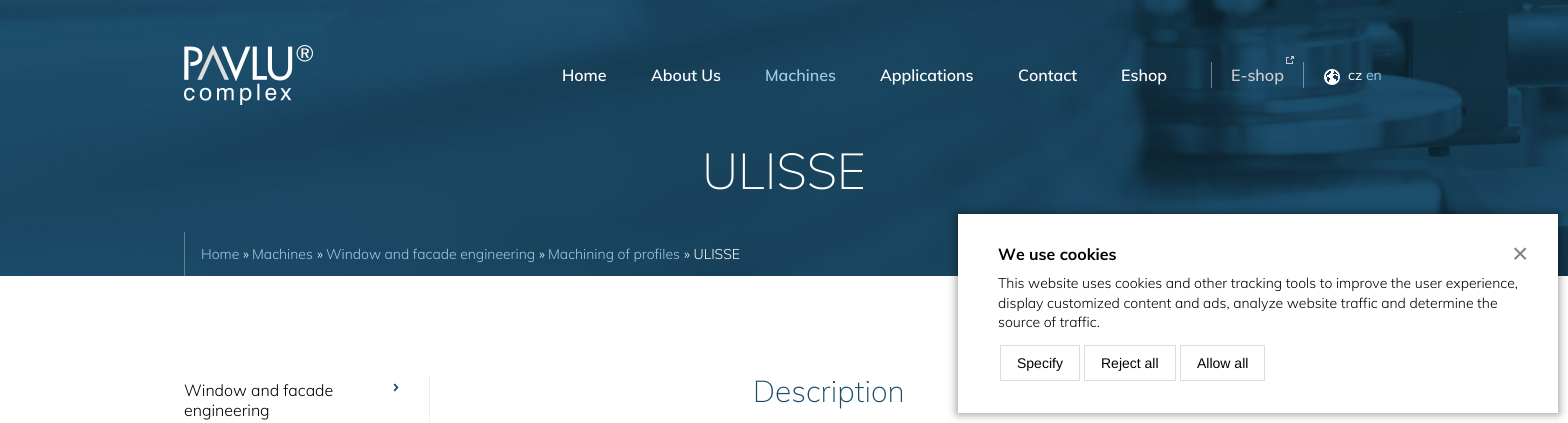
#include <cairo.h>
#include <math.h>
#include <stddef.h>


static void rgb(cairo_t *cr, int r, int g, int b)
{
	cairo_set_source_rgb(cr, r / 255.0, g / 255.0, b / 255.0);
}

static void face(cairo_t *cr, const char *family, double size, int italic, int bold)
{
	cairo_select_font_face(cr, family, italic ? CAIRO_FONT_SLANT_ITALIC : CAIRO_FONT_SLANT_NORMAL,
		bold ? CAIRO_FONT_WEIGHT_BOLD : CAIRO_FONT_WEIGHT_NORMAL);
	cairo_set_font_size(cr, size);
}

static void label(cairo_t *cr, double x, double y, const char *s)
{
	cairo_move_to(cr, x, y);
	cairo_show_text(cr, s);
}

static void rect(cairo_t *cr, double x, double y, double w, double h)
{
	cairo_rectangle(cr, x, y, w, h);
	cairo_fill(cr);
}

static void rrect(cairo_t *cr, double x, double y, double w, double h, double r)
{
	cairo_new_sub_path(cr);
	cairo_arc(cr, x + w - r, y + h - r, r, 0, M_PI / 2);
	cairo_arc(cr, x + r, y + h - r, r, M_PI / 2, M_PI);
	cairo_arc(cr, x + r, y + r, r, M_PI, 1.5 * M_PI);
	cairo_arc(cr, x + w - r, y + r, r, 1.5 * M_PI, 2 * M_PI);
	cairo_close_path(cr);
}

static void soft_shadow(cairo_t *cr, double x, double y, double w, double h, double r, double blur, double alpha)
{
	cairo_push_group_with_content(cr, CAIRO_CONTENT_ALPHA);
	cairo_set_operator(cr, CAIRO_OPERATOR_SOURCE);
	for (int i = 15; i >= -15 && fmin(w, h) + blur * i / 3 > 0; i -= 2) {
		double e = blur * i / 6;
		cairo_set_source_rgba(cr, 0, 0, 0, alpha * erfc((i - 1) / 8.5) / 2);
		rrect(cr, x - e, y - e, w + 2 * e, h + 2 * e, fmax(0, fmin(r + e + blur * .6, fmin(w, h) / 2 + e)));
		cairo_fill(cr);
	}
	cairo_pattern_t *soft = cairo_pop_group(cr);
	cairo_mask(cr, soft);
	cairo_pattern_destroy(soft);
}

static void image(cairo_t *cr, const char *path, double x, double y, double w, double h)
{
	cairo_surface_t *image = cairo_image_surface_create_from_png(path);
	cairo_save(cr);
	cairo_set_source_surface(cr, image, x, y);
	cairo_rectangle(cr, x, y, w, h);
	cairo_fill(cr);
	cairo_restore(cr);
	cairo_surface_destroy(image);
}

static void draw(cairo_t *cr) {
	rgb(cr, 255, 255, 255);
	cairo_paint(cr);
	image(cr, "image0.png", 0, 0, 1568, 276);
	image(cr, "image1.png", 184, 45, 129, 60);
	cairo_set_source_rgba(cr, 1, 1, 1, 0.4);
	rect(cr, 1303, 62, 1, 26);
	face(cr, "Muli SemiBold", 16, 0, 0);
	rgb(cr, 255, 255, 255);
	label(cr, 562, 81, "Home");
	label(cr, 651, 81, "About Us");
	rgb(cr, 157, 203, 229);
	label(cr, 765, 81, "Machines");
	rgb(cr, 255, 255, 255);
	label(cr, 880, 81, "Applications");
	label(cr, 1018, 81, "Contact");
	label(cr, 1121, 81, "Eshop");
	rgb(cr, 112, 129, 140);
	rect(cr, 1211, 62, 1, 26);
	image(cr, "image2.png", 1286, 56, 8, 8);
	rgb(cr, 204, 204, 204);
	label(cr, 1231, 81, "E-shop");
	image(cr, "image3.png", 1324, 69, 16, 16);
	face(cr, "Muli", 14, 0, 0);
	rgb(cr, 255, 255, 255);
	label(cr, 1348, 80, "cz");
	rgb(cr, 157, 203, 229);
	label(cr, 1366, 80, "en");
	face(cr, "Muli ExtraLight", 50, 0, 0);
	rgb(cr, 255, 255, 255);
	label(cr, 702, 189, "ULISSE");
	rgb(cr, 95, 129, 148);
	rect(cr, 184, 232, 1, 44);
	face(cr, "Muli Light", 14, 0, 0);
	rgb(cr, 157, 203, 229);
	label(cr, 201, 259, "Home");
	rgb(cr, 255, 255, 255);
	label(cr, 243, 259, "»");
	rgb(cr, 157, 203, 229);
	label(cr, 252, 259, "Machines");
	rgb(cr, 255, 255, 255);
	label(cr, 317, 259, "»");
	rgb(cr, 157, 203, 229);
	label(cr, 326, 259, "Window and facade engineering");
	rgb(cr, 255, 255, 255);
	label(cr, 539, 259, "»");
	rgb(cr, 157, 203, 229);
	label(cr, 548, 259, "Machining of profiles");
	rgb(cr, 255, 255, 255);
	label(cr, 684, 259, "» ULISSE");
	rgb(cr, 0, 0, 0);
	soft_shadow(cr, 958, 214, 600, 199, 0, 5, 0.5);
	rgb(cr, 255, 255, 255);
	rect(cr, 958, 214, 600, 199);
	face(cr, "Muli", 16, 0, 1);
	rgb(cr, 0, 0, 0);
	label(cr, 998, 260, "We use cookies");
	face(cr, "Muli Light", 14, 0, 0);
	label(cr, 998, 288, "This website uses cookies and other tracking tools to improve the user experience,");
	label(cr, 998, 308, "display customized content and ads, analyze website traffic and determine the");
	label(cr, 998, 327, "source of traffic.");
	cairo_rectangle(cr, 1000.5, 345.5, 79, 35);
	rgb(cr, 221, 221, 221);
	cairo_set_line_width(cr, 1);
	cairo_stroke(cr);
	face(cr, "Liberation Sans", 14, 0, 0);
	rgb(cr, 0, 0, 0);
	label(cr, 1017, 368, "Specify");
	cairo_rectangle(cr, 1084.5, 345.5, 91, 35);
	rgb(cr, 221, 221, 221);
	cairo_stroke(cr);
	rgb(cr, 0, 0, 0);
	label(cr, 1101, 368, "Reject all");
	cairo_rectangle(cr, 1180.5, 345.5, 84, 35);
	rgb(cr, 221, 221, 221);
	cairo_stroke(cr);
	rgb(cr, 0, 0, 0);
	label(cr, 1197, 368, "Allow all");
	face(cr, "Liberation Sans", 28, 0, 0);
	rgb(cr, 128, 128, 128);
	label(cr, 1512, 263, "×");
	rgb(cr, 238, 238, 238);
	rect(cr, 429, 376, 1, 47);
	image(cr, "image4.png", 393, 383, 6, 9);
	face(cr, "Muli Light", 16, 0, 0);
	rgb(cr, 0, 0, 0);
	label(cr, 184, 396, "Window and facade");
	label(cr, 184, 416, "engineering");
	face(cr, "Muli ExtraLight", 30, 0, 0);
	rgb(cr, 26, 77, 108);
	label(cr, 753, 402, "Description");
}

int main(void) {
	cairo_surface_t *surface = cairo_image_surface_create(CAIRO_FORMAT_RGB24, 1568, 423);
	cairo_t *cr = cairo_create(surface);
	cairo_font_options_t *options = cairo_font_options_create();
	cairo_font_options_set_hint_metrics(options, CAIRO_HINT_METRICS_OFF);
	cairo_font_options_set_hint_style(options, CAIRO_HINT_STYLE_NONE);
	cairo_set_font_options(cr, options);
	cairo_set_miter_limit(cr, 4);
	draw(cr);
	cairo_surface_write_to_png(surface, "render.png");
	cairo_font_options_destroy(options);
	cairo_destroy(cr);
	cairo_surface_destroy(surface);
	return 0;
}
